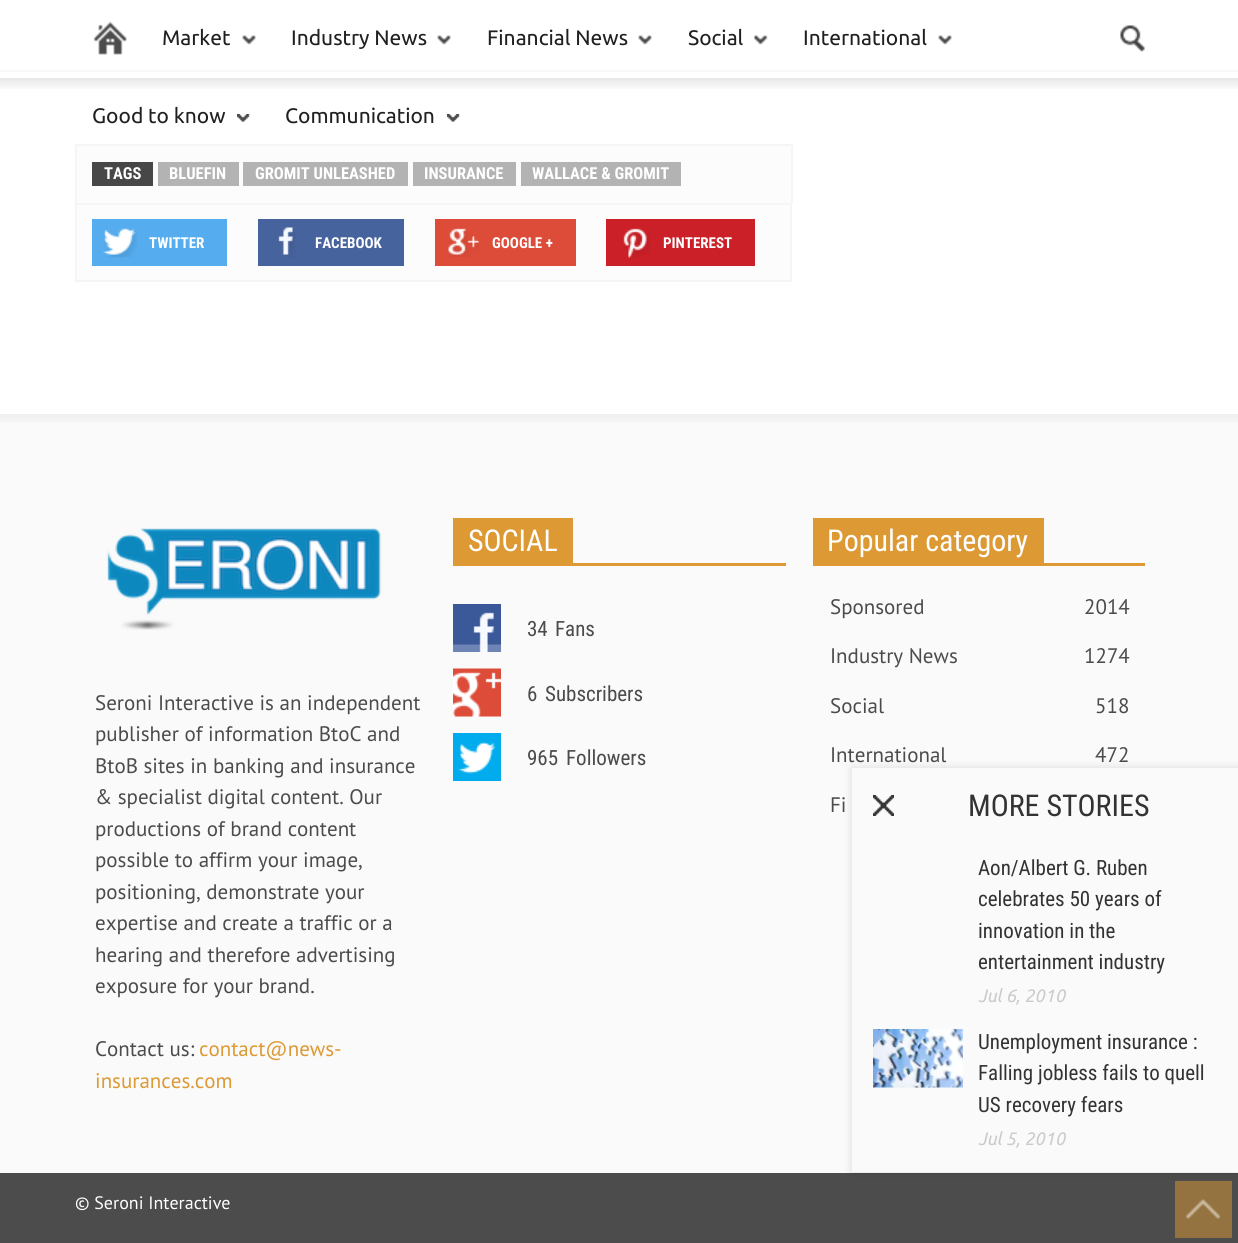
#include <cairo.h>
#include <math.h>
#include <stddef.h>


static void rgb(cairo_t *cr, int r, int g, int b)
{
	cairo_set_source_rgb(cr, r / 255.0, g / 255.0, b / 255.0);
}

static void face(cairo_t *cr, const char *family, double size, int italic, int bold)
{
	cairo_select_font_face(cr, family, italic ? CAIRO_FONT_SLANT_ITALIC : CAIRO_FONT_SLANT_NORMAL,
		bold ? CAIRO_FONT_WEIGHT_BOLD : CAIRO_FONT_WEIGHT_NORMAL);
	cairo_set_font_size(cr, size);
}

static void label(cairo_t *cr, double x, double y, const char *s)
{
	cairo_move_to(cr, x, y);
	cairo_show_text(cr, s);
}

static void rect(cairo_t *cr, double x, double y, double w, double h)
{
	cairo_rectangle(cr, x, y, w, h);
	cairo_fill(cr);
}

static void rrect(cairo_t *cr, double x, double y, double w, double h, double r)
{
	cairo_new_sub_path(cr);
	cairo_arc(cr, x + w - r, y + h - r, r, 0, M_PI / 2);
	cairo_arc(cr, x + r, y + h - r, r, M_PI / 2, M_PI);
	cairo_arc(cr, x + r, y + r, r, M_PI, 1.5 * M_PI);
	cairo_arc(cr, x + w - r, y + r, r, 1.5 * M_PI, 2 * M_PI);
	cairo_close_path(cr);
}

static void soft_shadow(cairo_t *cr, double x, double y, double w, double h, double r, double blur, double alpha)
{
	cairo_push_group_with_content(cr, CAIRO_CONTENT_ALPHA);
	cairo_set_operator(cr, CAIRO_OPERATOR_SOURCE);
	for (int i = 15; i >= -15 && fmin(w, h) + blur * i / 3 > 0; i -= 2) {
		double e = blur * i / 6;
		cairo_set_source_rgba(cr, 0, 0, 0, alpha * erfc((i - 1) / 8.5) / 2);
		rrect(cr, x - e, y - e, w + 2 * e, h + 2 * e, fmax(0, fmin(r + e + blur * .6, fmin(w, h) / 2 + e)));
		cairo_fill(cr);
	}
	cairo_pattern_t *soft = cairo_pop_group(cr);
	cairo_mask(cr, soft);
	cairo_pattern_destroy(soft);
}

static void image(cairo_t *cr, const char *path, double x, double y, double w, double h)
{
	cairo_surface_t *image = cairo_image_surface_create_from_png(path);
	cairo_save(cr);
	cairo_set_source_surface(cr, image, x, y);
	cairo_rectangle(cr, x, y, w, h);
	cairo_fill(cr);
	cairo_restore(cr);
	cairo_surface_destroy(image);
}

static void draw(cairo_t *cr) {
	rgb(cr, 255, 255, 255);
	cairo_paint(cr);
	rgb(cr, 249, 249, 248);
	rect(cr, 0, 70, 1238, 2);
	image(cr, "image0.png", 93, 21, 34, 34);
	face(cr, "Ubuntu", 21, 0, 0);
	rgb(cr, 32, 32, 32);
	label(cr, 162, 45, "Market");
	image(cr, "image1.png", 242, 35, 14, 10);
	label(cr, 291, 45, "Industry News");
	image(cr, "image1.png", 437, 35, 14, 10);
	label(cr, 487, 45, "Financial News");
	image(cr, "image1.png", 638, 35, 14, 10);
	label(cr, 688, 45, "Social");
	image(cr, "image2.png", 754, 35, 14, 10);
	label(cr, 803, 45, "International");
	image(cr, "image1.png", 938, 35, 14, 10);
	label(cr, 92, 123, "Good to know");
	image(cr, "image3.png", 237, 114, 13, 8);
	label(cr, 285, 123, "Communication");
	image(cr, "image3.png", 447, 114, 13, 8);
	image(cr, "image4.png", 1120, 25, 25, 27);
	image(cr, "image5.png", 0, 78, 1238, 11);
	rgb(cr, 252, 252, 252);
	rect(cr, 77, 146, 714, 57);
	rgb(cr, 245, 245, 245);
	rect(cr, 75, 144, 717, 2);
	rect(cr, 791, 144, 2, 59);
	rect(cr, 75, 144, 2, 59);
	rgb(cr, 71, 71, 71);
	rect(cr, 92, 162, 61, 24);
	face(cr, "Roboto Condensed", 16.5, 0, 1);
	rgb(cr, 255, 255, 255);
	label(cr, 104, 179, "TAGS");
	rgb(cr, 179, 179, 179);
	rect(cr, 158, 162, 81, 24);
	rgb(cr, 255, 255, 255);
	label(cr, 169, 179, "BLUEFIN");
	rgb(cr, 179, 179, 179);
	rect(cr, 243, 162, 165, 24);
	rgb(cr, 255, 255, 255);
	label(cr, 255, 179, "GROMIT UNLEASHED");
	rgb(cr, 179, 179, 179);
	rect(cr, 413, 162, 103, 24);
	rgb(cr, 255, 255, 255);
	label(cr, 424, 179, "INSURANCE");
	rgb(cr, 179, 179, 179);
	rect(cr, 521, 162, 160, 24);
	rgb(cr, 255, 255, 255);
	label(cr, 532, 179, "WALLACE & GROMIT");
	rgb(cr, 252, 252, 252);
	cairo_rectangle(cr, 76, 204, 715, 77);
	cairo_fill_preserve(cr);
	rgb(cr, 245, 245, 245);
	cairo_stroke(cr);
	rgb(cr, 85, 172, 238);
	rect(cr, 92, 219, 135, 47);
	image(cr, "image6.png", 103, 228, 35, 30);
	face(cr, "Roboto Condensed", 15, 0, 1);
	rgb(cr, 255, 255, 255);
	label(cr, 149, 248, "TWITTER");
	rgb(cr, 71, 99, 158);
	rect(cr, 258, 219, 146, 47);
	image(cr, "image7.png", 278, 227, 18, 30);
	rgb(cr, 255, 255, 255);
	label(cr, 315, 248, "FACEBOOK");
	rgb(cr, 221, 75, 57);
	rect(cr, 435, 219, 141, 47);
	image(cr, "image8.png", 448, 228, 31, 29);
	rgb(cr, 255, 255, 255);
	label(cr, 492, 248, "GOOGLE +");
	rgb(cr, 203, 32, 39);
	rect(cr, 606, 219, 149, 47);
	image(cr, "image9.png", 623, 228, 28, 30);
	rgb(cr, 255, 255, 255);
	label(cr, 663, 248, "PINTEREST");
	rgb(cr, 250, 250, 250);
	rect(cr, 0, 414, 1238, 759);
	image(cr, "image10.png", 0, 414, 1238, 8);
	rgb(cr, 221, 153, 51);
	rect(cr, 453, 563, 333, 3);
	rect(cr, 453, 518, 120, 45);
	face(cr, "Roboto Condensed", 30, 0, 0);
	rgb(cr, 255, 255, 255);
	label(cr, 468, 551, "SOCIAL");
	image(cr, "image11.png", 453, 604, 48, 48);
	face(cr, "Roboto Condensed", 21, 0, 0);
	rgb(cr, 75, 75, 75);
	label(cr, 527, 636, "34");
	label(cr, 555, 636, "Fans");
	image(cr, "image12.png", 453, 668, 48, 49);
	label(cr, 527, 701, "6");
	label(cr, 545, 701, "Subscribers");
	image(cr, "image13.png", 453, 733, 48, 48);
	label(cr, 527, 765, "965");
	label(cr, 566, 765, "Followers");
	rgb(cr, 221, 153, 51);
	rect(cr, 813, 563, 332, 3);
	rect(cr, 813, 518, 231, 45);
	face(cr, "Roboto Condensed", 30, 0, 0);
	rgb(cr, 255, 255, 255);
	label(cr, 827, 551, "Popular category");
	face(cr, "PT Sans", 21, 0, 0);
	rgb(cr, 75, 75, 75);
	label(cr, 830, 614, "Sponsored");
	label(cr, 1084, 614, "2014");
	label(cr, 830, 663, "Industry News");
	label(cr, 1084, 663, "1274");
	label(cr, 830, 713, "Social");
	label(cr, 1095, 713, "518");
	label(cr, 830, 762, "International");
	label(cr, 1095, 762, "472");
	label(cr, 830, 812, "Fi");
	image(cr, "image14.png", 106, 527, 276, 103);
	label(cr, 95, 710, "Seroni Interactive is an independent");
	label(cr, 95, 741, "publisher of information BtoC and");
	label(cr, 95, 773, "BtoB sites in banking and insurance");
	label(cr, 95, 804, "& specialist digital content. Our");
	label(cr, 95, 836, "productions of brand content");
	label(cr, 95, 867, "possible to affirm your image,");
	label(cr, 95, 899, "positioning, demonstrate your");
	label(cr, 95, 930, "expertise and create a traffic or a");
	label(cr, 95, 962, "hearing and therefore advertising");
	label(cr, 95, 993, "exposure for your brand.");
	label(cr, 95, 1056, "Contact us:");
	rgb(cr, 221, 153, 51);
	label(cr, 199, 1056, "contact@news-");
	label(cr, 95, 1088, "insurances.com");
	rgb(cr, 76, 76, 76);
	rect(cr, 0, 1173, 1238, 70);
	face(cr, "PT Sans", 18, 0, 0);
	rgb(cr, 255, 255, 255);
	label(cr, 75, 1209, "© Seroni Interactive");
	rgb(cr, 149, 115, 64);
	rect(cr, 1175, 1181, 57, 57);
	rgb(cr, 0, 0, 0);
	soft_shadow(cr, 852, 768, 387, 404, 0, 4.5, 0.13);
	rgb(cr, 250, 250, 250);
	rect(cr, 852, 768, 386, 404);
	image(cr, "image15.png", 873, 795, 21, 21);
	face(cr, "Roboto Condensed", 30, 0, 0);
	rgb(cr, 51, 51, 51);
	label(cr, 968, 816, "MORE STORIES");
	face(cr, "Roboto Condensed", 21, 0, 0);
	label(cr, 978, 875, "Aon/Albert G. Ruben");
	label(cr, 978, 906, "celebrates 50 years of");
	label(cr, 978, 938, "innovation in the");
	label(cr, 978, 969, "entertainment industry");
	face(cr, "Ubuntu", 18, 1, 0);
	rgb(cr, 203, 203, 203);
	label(cr, 978, 1002, "Jul 6, 2010");
	image(cr, "image16.png", 873, 1029, 90, 59);
	face(cr, "Roboto Condensed", 21, 0, 0);
	rgb(cr, 51, 51, 51);
	label(cr, 978, 1049, "Unemployment insurance :");
	label(cr, 978, 1080, "Falling jobless fails to quell");
	label(cr, 978, 1112, "US recovery fears");
	face(cr, "Ubuntu", 18, 1, 0);
	rgb(cr, 203, 203, 203);
	label(cr, 978, 1145, "Jul 5, 2010");
	image(cr, "image17.png", 1185, 1199, 36, 20);
}

int main(void) {
	cairo_surface_t *surface = cairo_image_surface_create(CAIRO_FORMAT_RGB24, 1238, 1243);
	cairo_t *cr = cairo_create(surface);
	cairo_font_options_t *options = cairo_font_options_create();
	cairo_font_options_set_hint_metrics(options, CAIRO_HINT_METRICS_OFF);
	cairo_font_options_set_hint_style(options, CAIRO_HINT_STYLE_NONE);
	cairo_set_font_options(cr, options);
	cairo_set_miter_limit(cr, 4);
	draw(cr);
	cairo_surface_write_to_png(surface, "render.png");
	cairo_font_options_destroy(options);
	cairo_destroy(cr);
	cairo_surface_destroy(surface);
	return 0;
}
